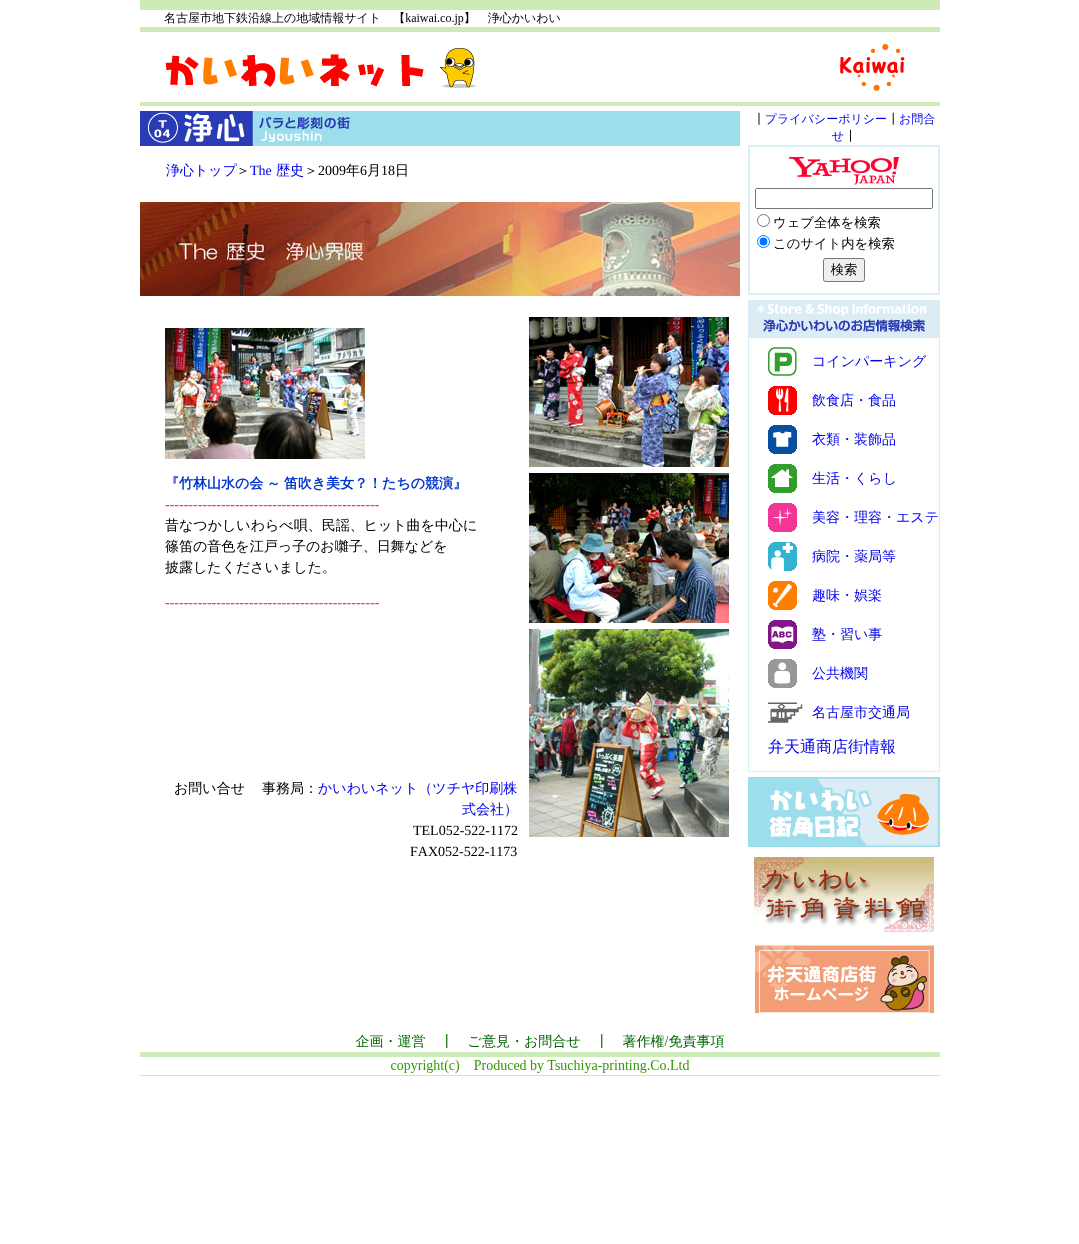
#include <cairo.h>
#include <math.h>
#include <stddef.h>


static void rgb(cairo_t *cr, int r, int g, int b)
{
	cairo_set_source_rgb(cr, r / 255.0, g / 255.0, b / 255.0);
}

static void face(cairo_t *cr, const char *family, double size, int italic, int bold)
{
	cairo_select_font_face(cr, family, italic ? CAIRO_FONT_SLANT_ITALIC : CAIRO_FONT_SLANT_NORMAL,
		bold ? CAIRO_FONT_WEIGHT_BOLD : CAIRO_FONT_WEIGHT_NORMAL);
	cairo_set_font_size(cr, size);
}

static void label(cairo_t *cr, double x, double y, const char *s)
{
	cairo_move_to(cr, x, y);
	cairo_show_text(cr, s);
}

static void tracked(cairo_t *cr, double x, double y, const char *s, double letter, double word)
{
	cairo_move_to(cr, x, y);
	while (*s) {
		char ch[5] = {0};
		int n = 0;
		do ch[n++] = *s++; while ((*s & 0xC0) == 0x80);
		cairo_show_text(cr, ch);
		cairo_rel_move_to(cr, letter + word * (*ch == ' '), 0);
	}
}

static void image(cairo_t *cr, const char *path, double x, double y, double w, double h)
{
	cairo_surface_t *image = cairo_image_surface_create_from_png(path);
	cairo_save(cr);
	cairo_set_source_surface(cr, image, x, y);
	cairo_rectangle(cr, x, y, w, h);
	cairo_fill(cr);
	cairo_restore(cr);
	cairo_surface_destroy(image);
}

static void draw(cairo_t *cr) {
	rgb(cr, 255, 255, 255);
	cairo_paint(cr);
	image(cr, "image0.png", 140, 0, 800, 106);
	image(cr, "image1.png", 140, 111, 600, 35);
	image(cr, "image2.png", 748, 112, 192, 901);
	face(cr, "WenQuanYi Zen Hei Medium", 14, 0, 0);
	rgb(cr, 0, 0, 238);
	label(cr, 166, 175, "浄心トップ");
	rgb(cr, 0, 0, 0);
	label(cr, 236, 175, "＞");
	face(cr, "Liberation Serif", 14, 0, 0);
	rgb(cr, 0, 0, 238);
	label(cr, 250, 175, "The");
	face(cr, "WenQuanYi Zen Hei Medium", 14, 0, 0);
	label(cr, 276, 175, "歴史");
	rgb(cr, 0, 0, 0);
	label(cr, 304, 175, "＞");
	face(cr, "Liberation Serif", 14, 0, 0);
	label(cr, 318, 175, "2009");
	face(cr, "WenQuanYi Zen Hei Medium", 14, 0, 0);
	label(cr, 346, 175, "年");
	face(cr, "Liberation Serif", 14, 0, 0);
	label(cr, 360, 175, "6");
	face(cr, "WenQuanYi Zen Hei Medium", 14, 0, 0);
	label(cr, 367, 175, "月");
	face(cr, "Liberation Serif", 14, 0, 0);
	label(cr, 381, 175, "18");
	face(cr, "WenQuanYi Zen Hei Medium", 14, 0, 0);
	label(cr, 395, 175, "日");
	image(cr, "image3.png", 140, 202, 600, 94);
	image(cr, "image4.png", 165, 328, 200, 131);
	face(cr, "WenQuanYi Zen Hei", 14, 0, 1);
	rgb(cr, 0, 51, 204);
	tracked(cr, 165, 488, "『竹林山水の会 ～ 笛吹き美女？！たちの競演』", 0, -1);
	face(cr, "Liberation Serif", 14, 0, 0);
	rgb(cr, 255, 0, 153);
	label(cr, 165, 509, "----------------------------------------------");
	face(cr, "WenQuanYi Zen Hei Medium", 14, 0, 0);
	rgb(cr, 0, 0, 0);
	label(cr, 165, 530, "昔なつかしいわらべ唄、民謡、ヒット曲を中心に");
	label(cr, 165, 551, "篠笛の音色を江戸っ子のお囃子、日舞などを");
	label(cr, 165, 572, "披露したくださいました。");
	face(cr, "Liberation Serif", 14, 0, 0);
	rgb(cr, 255, 0, 153);
	label(cr, 165, 607, "----------------------------------------------");
	image(cr, "image5.png", 529, 317, 200, 150);
	image(cr, "image6.png", 529, 473, 200, 150);
	image(cr, "image7.png", 529, 629, 200, 208);
	face(cr, "WenQuanYi Zen Hei Medium", 14, 0, 0);
	rgb(cr, 0, 0, 0);
	label(cr, 174, 793, "お問い合せ");
	label(cr, 262, 793, "事務局：");
	rgb(cr, 0, 0, 238);
	label(cr, 318, 793, "かいわいネット（ツチヤ印刷株");
	label(cr, 462, 814, "式会社）");
	face(cr, "Liberation Serif", 14, 0, 0);
	rgb(cr, 0, 0, 0);
	label(cr, 413, 835, "TEL052-522-1172");
	label(cr, 410, 856, "FAX052-522-1173");
	image(cr, "image8.png", 140, 1034, 800, 42);
}

int main(void) {
	cairo_surface_t *surface = cairo_image_surface_create(CAIRO_FORMAT_RGB24, 1079, 1244);
	cairo_t *cr = cairo_create(surface);
	cairo_font_options_t *options = cairo_font_options_create();
	cairo_font_options_set_hint_metrics(options, CAIRO_HINT_METRICS_OFF);
	cairo_font_options_set_hint_style(options, CAIRO_HINT_STYLE_NONE);
	cairo_set_font_options(cr, options);
	cairo_set_miter_limit(cr, 4);
	draw(cr);
	cairo_surface_write_to_png(surface, "render.png");
	cairo_font_options_destroy(options);
	cairo_destroy(cr);
	cairo_surface_destroy(surface);
	return 0;
}
